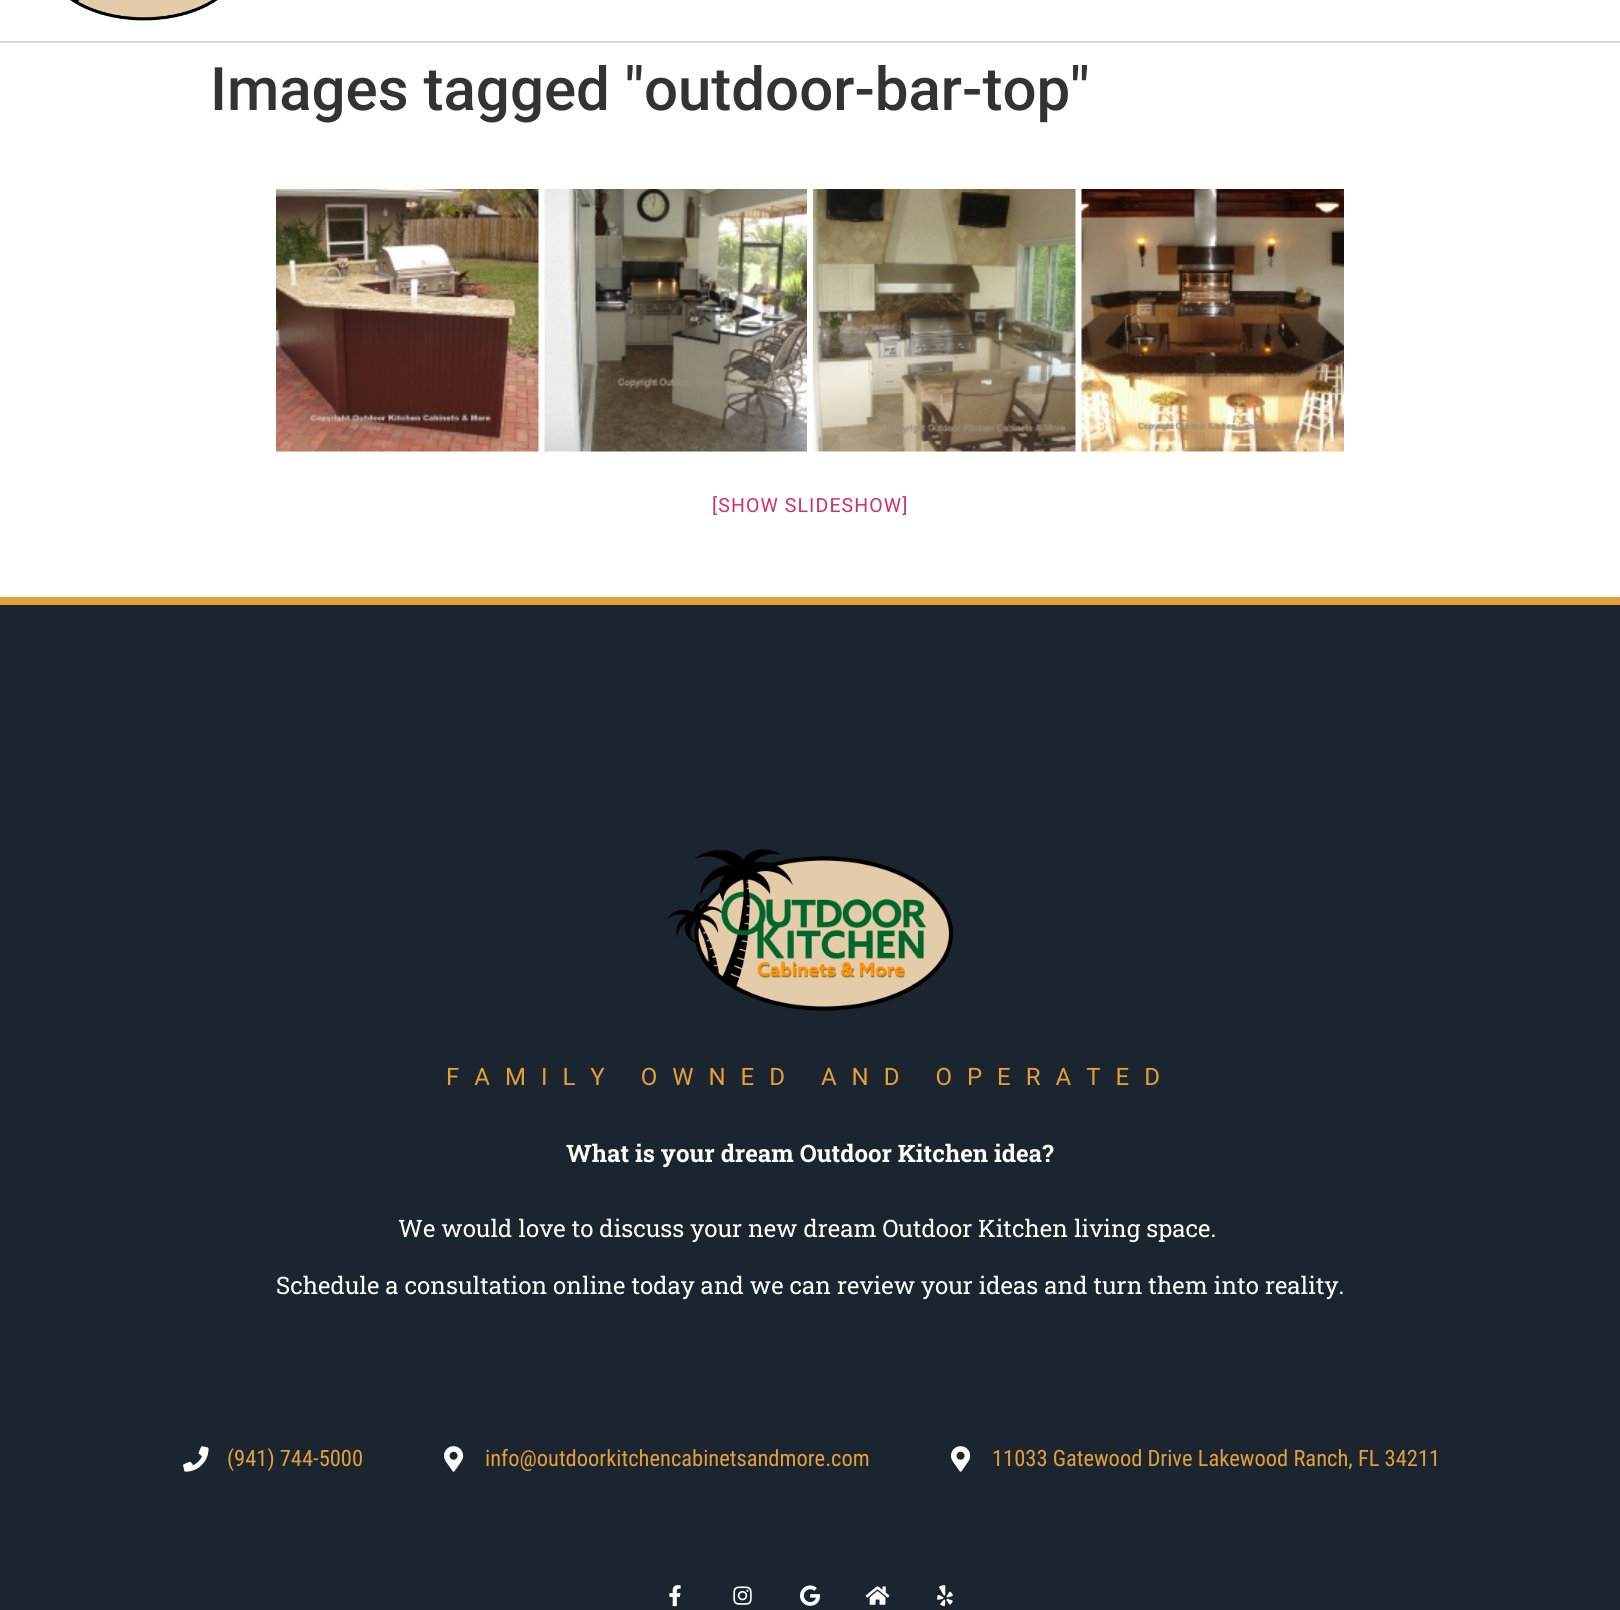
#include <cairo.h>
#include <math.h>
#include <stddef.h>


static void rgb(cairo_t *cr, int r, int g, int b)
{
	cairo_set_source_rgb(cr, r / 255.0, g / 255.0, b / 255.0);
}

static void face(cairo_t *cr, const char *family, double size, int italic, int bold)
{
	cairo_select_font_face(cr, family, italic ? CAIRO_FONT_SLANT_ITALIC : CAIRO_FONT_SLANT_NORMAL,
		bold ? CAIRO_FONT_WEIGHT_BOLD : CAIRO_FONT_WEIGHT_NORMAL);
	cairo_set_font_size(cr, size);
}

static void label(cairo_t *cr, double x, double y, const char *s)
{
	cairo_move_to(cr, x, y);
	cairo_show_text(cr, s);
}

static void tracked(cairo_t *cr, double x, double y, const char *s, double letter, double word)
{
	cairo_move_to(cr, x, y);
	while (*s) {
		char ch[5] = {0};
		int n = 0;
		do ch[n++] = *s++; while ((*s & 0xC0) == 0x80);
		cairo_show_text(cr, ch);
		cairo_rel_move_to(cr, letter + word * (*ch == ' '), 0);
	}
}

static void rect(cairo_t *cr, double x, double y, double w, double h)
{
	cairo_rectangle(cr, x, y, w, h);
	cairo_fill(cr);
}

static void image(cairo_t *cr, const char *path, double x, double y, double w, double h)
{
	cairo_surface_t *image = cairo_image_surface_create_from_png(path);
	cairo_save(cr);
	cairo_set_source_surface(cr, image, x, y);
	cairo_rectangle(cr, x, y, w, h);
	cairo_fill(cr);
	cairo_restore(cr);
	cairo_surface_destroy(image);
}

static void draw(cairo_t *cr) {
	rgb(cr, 255, 255, 255);
	cairo_paint(cr);
	rgb(cr, 216, 216, 216);
	rect(cr, 0, 41, 1620, 2);
	image(cr, "image0.png", 70, 0, 148, 21);
	face(cr, "Roboto Medium", 60, 0, 0);
	rgb(cr, 51, 51, 51);
	label(cr, 210, 110, "Images tagged \"outdoor-bar-top\"");
	image(cr, "image1.png", 276, 189, 263, 263);
	image(cr, "image2.png", 544, 189, 263, 263);
	image(cr, "image3.png", 813, 189, 263, 263);
	image(cr, "image4.png", 1081, 189, 263, 263);
	face(cr, "Roboto", 19.5, 0, 0);
	rgb(cr, 204, 51, 102);
	tracked(cr, 712, 512, "[SHOW SLIDESHOW]", 1.1, 0);
	rgb(cr, 27, 37, 47);
	rect(cr, 0, 605, 1620, 1005);
	rgb(cr, 228, 159, 59);
	rect(cr, 0, 597, 1620, 8);
	image(cr, "image5.png", 667, 849, 287, 162);
	face(cr, "Roboto", 24, 0, 0);
	tracked(cr, 446, 1085, "FAMILY OWNED AND OPERATED", 15, 0);
	face(cr, "Roboto Slab", 24, 0, 1);
	rgb(cr, 255, 255, 255);
	label(cr, 566, 1162, "What is your dream Outdoor Kitchen idea?");
	face(cr, "Roboto Slab", 24, 0, 0);
	label(cr, 398, 1237, "We would love to discuss your new dream Outdoor Kitchen living space.");
	label(cr, 276, 1294, "Schedule a consultation online today and we can review your ideas and turn them into reality.");
	image(cr, "image6.png", 183, 1446, 26, 26);
	face(cr, "Roboto Condensed", 22.5, 0, 0);
	rgb(cr, 228, 159, 59);
	label(cr, 227, 1466, "(941) 744-5000");
	image(cr, "image7.png", 444, 1446, 20, 26);
	label(cr, 485, 1466, "info@outdoorkitchencabinetsandmore.com");
	image(cr, "image7.png", 951, 1446, 20, 26);
	label(cr, 992, 1466, "11033 Gatewood Drive Lakewood Ranch, FL 34211");
	image(cr, "image8.png", 669, 1585, 12, 22);
	image(cr, "image9.png", 733, 1586, 19, 19);
	image(cr, "image10.png", 800, 1585, 20, 21);
	image(cr, "image11.png", 865, 1586, 25, 19);
	image(cr, "image12.png", 937, 1585, 16, 22);
}

int main(void) {
	cairo_surface_t *surface = cairo_image_surface_create(CAIRO_FORMAT_RGB24, 1620, 1610);
	cairo_t *cr = cairo_create(surface);
	cairo_font_options_t *options = cairo_font_options_create();
	cairo_font_options_set_hint_metrics(options, CAIRO_HINT_METRICS_OFF);
	cairo_font_options_set_hint_style(options, CAIRO_HINT_STYLE_NONE);
	cairo_set_font_options(cr, options);
	cairo_set_miter_limit(cr, 4);
	draw(cr);
	cairo_surface_write_to_png(surface, "render.png");
	cairo_font_options_destroy(options);
	cairo_destroy(cr);
	cairo_surface_destroy(surface);
	return 0;
}
